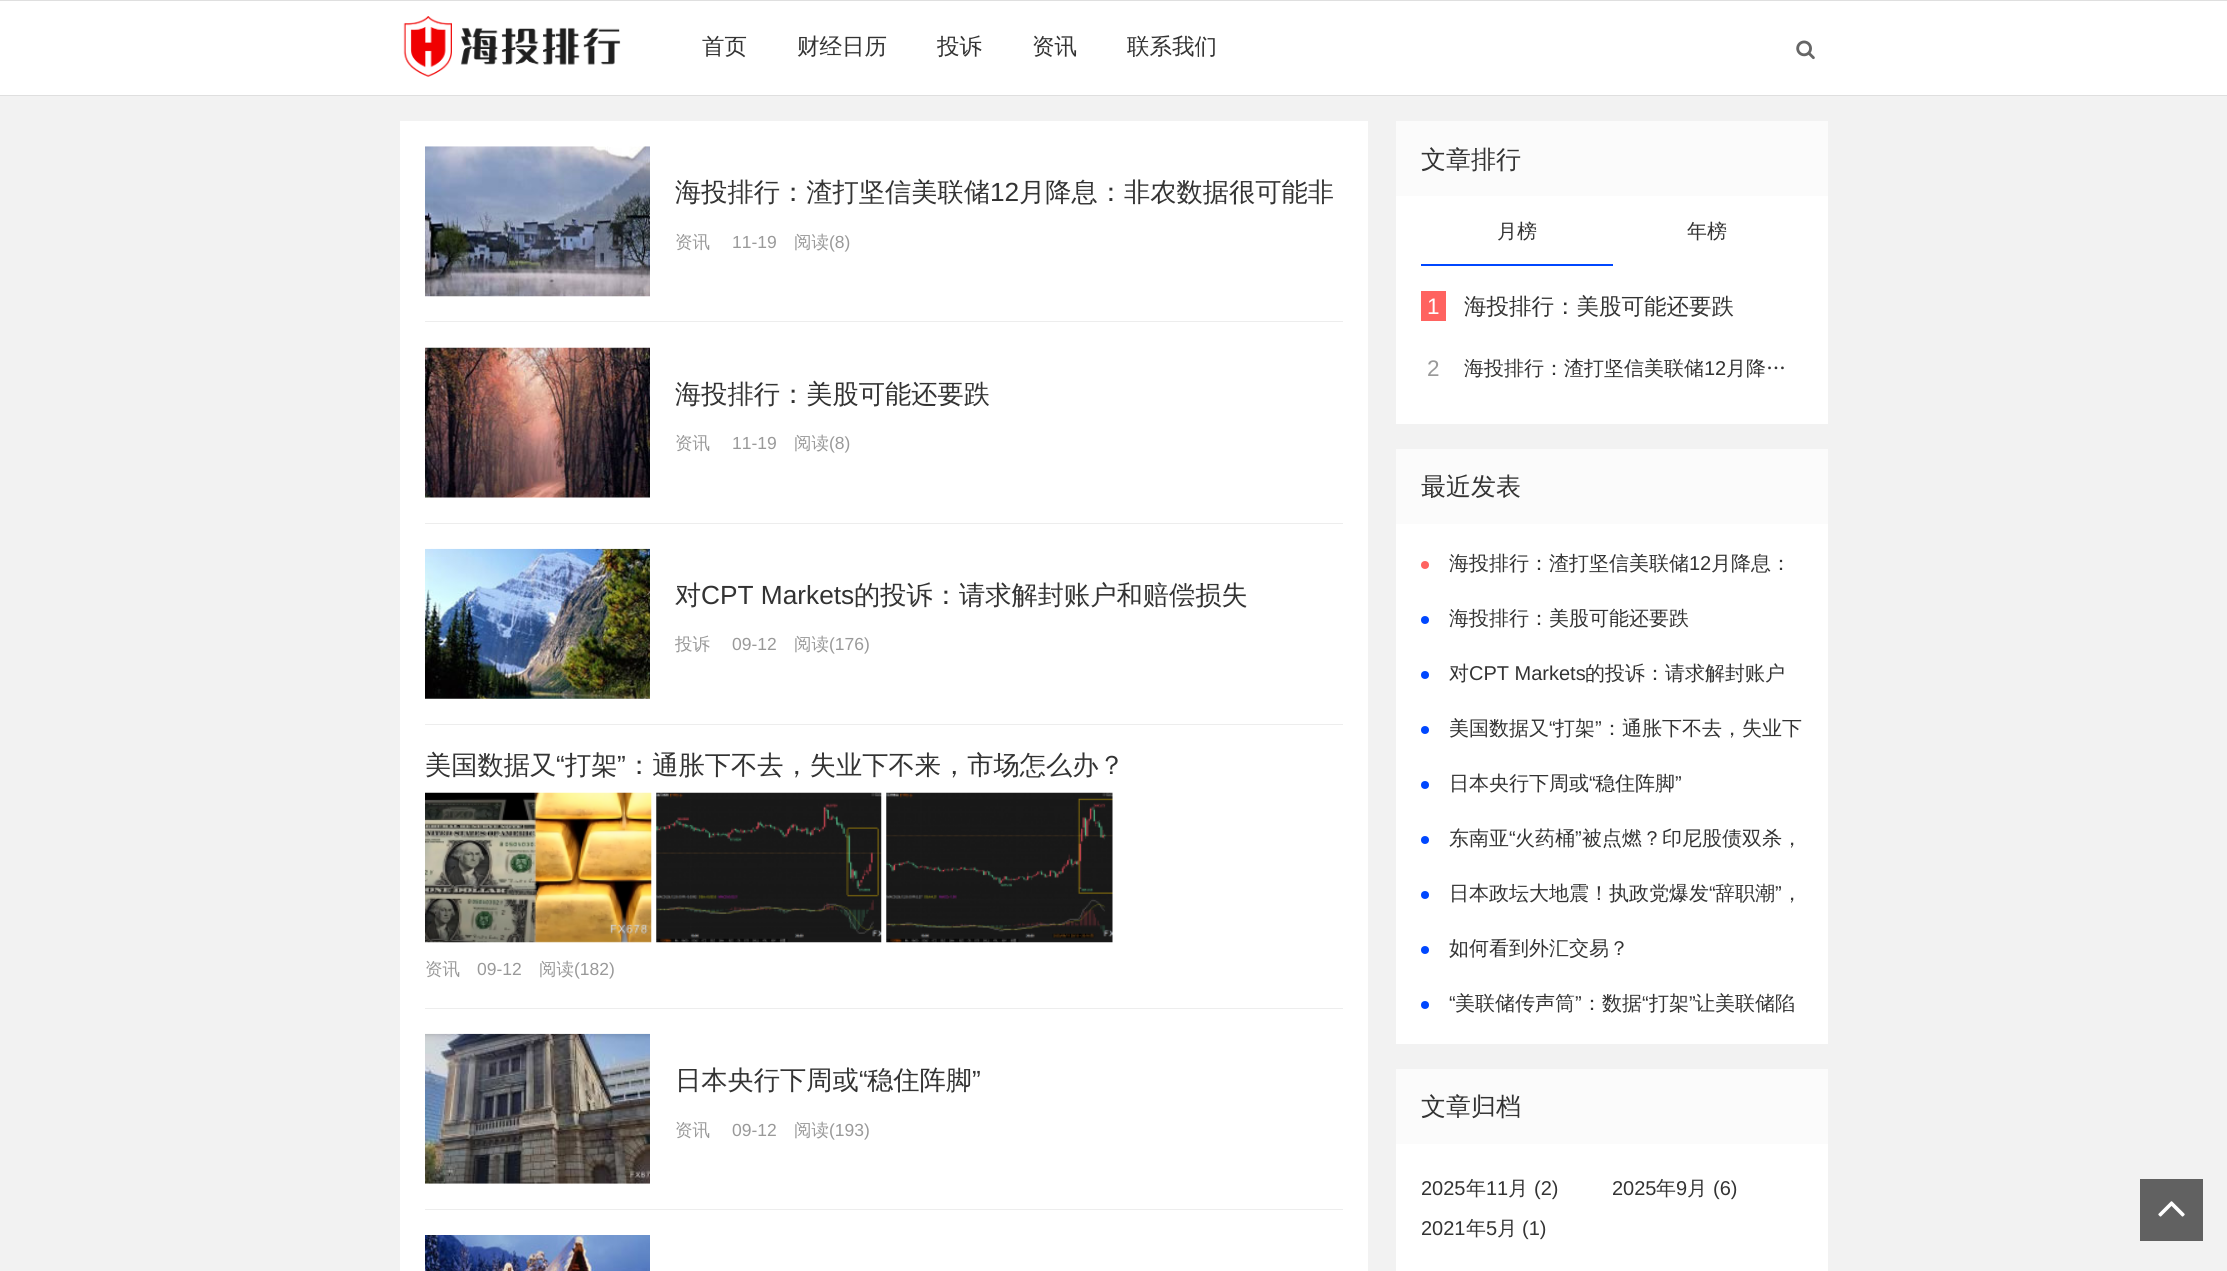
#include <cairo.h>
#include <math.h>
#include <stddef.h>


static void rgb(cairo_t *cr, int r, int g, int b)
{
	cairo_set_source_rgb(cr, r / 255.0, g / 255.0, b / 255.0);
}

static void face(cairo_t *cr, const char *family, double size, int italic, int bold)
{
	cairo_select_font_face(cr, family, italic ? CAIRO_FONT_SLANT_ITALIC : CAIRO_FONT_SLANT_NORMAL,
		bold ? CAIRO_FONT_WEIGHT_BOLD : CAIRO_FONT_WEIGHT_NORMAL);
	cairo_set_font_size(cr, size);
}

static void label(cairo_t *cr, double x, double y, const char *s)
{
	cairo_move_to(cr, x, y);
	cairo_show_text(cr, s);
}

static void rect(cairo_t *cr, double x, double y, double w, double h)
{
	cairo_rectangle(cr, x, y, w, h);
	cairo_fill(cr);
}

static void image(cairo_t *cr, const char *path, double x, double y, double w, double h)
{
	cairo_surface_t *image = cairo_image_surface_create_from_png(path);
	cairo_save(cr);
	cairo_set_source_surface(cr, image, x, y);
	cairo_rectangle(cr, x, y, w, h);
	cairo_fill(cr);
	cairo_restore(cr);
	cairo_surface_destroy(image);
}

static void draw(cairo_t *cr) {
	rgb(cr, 242, 242, 242);
	cairo_paint(cr);
	rgb(cr, 255, 255, 255);
	rect(cr, 0, 1, 2227, 94);
	rgb(cr, 223, 223, 223);
	rect(cr, 0, 0, 2227, 1);
	rect(cr, 0, 95, 2227, 1);
	image(cr, "image0.png", 403, 16, 218, 61);
	face(cr, "WenQuanYi Zen Hei Medium", 22.5, 0, 0);
	rgb(cr, 51, 51, 51);
	label(cr, 702, 54, "首页");
	label(cr, 797, 54, "财经日历");
	label(cr, 937, 54, "投诉");
	label(cr, 1032, 54, "资讯");
	label(cr, 1127, 54, "联系我们");
	image(cr, "image1.png", 1796, 40, 19, 20);
	rgb(cr, 255, 255, 255);
	rect(cr, 400, 121, 968, 1150);
	rgb(cr, 237, 237, 237);
	rect(cr, 425, 321, 918, 1);
	image(cr, "image2.png", 425, 146, 225, 151);
	face(cr, "WenQuanYi Zen Hei Medium", 26.25, 0, 0);
	rgb(cr, 51, 51, 51);
	label(cr, 675, 201, "海投排行：渣打坚信美联储");
	face(cr, "Liberation Sans", 26.25, 0, 0);
	label(cr, 990, 201, "12");
	face(cr, "WenQuanYi Zen Hei Medium", 26.25, 0, 0);
	label(cr, 1019, 201, "月降息：非农数据很可能非");
	face(cr, "WenQuanYi Zen Hei Medium", 17.5, 0, 0);
	rgb(cr, 153, 153, 153);
	label(cr, 675, 248, "资讯");
	face(cr, "Liberation Sans", 17.5, 0, 0);
	label(cr, 732, 248, "11-19");
	face(cr, "WenQuanYi Zen Hei Medium", 17.5, 0, 0);
	label(cr, 794, 248, "阅读");
	face(cr, "Liberation Sans", 17.5, 0, 0);
	label(cr, 829, 248, "(8)");
	rgb(cr, 237, 237, 237);
	rect(cr, 425, 523, 918, 1);
	image(cr, "image3.png", 425, 347, 225, 151);
	face(cr, "WenQuanYi Zen Hei Medium", 26.25, 0, 0);
	rgb(cr, 51, 51, 51);
	label(cr, 675, 403, "海投排行：美股可能还要跌");
	face(cr, "WenQuanYi Zen Hei Medium", 17.5, 0, 0);
	rgb(cr, 153, 153, 153);
	label(cr, 675, 449, "资讯");
	face(cr, "Liberation Sans", 17.5, 0, 0);
	label(cr, 732, 449, "11-19");
	face(cr, "WenQuanYi Zen Hei Medium", 17.5, 0, 0);
	label(cr, 794, 449, "阅读");
	face(cr, "Liberation Sans", 17.5, 0, 0);
	label(cr, 829, 449, "(8)");
	rgb(cr, 237, 237, 237);
	rect(cr, 425, 724, 918, 1);
	image(cr, "image4.png", 425, 548, 225, 151);
	face(cr, "WenQuanYi Zen Hei Medium", 26.25, 0, 0);
	rgb(cr, 51, 51, 51);
	label(cr, 675, 604, "对");
	face(cr, "Liberation Sans", 26.25, 0, 0);
	label(cr, 701, 604, "CPT Markets");
	face(cr, "WenQuanYi Zen Hei Medium", 26.25, 0, 0);
	label(cr, 854, 604, "的投诉：请求解封账户和赔偿损失");
	face(cr, "WenQuanYi Zen Hei Medium", 17.5, 0, 0);
	rgb(cr, 153, 153, 153);
	label(cr, 675, 650, "投诉");
	face(cr, "Liberation Sans", 17.5, 0, 0);
	label(cr, 732, 650, "09-12");
	face(cr, "WenQuanYi Zen Hei Medium", 17.5, 0, 0);
	label(cr, 794, 650, "阅读");
	face(cr, "Liberation Sans", 17.5, 0, 0);
	label(cr, 829, 650, "(176)");
	rgb(cr, 237, 237, 237);
	rect(cr, 425, 1008, 918, 1);
	face(cr, "WenQuanYi Zen Hei Medium", 26.25, 0, 0);
	rgb(cr, 51, 51, 51);
	label(cr, 425, 774, "美国数据又");
	face(cr, "Liberation Sans", 26.25, 0, 0);
	label(cr, 556, 774, "“");
	face(cr, "WenQuanYi Zen Hei Medium", 26.25, 0, 0);
	label(cr, 565, 774, "打架");
	face(cr, "Liberation Sans", 26.25, 0, 0);
	label(cr, 617, 774, "”");
	face(cr, "WenQuanYi Zen Hei Medium", 26.25, 0, 0);
	label(cr, 626, 774, "：通胀下不去，失业下不来，市场怎么办？");
	image(cr, "image5.png", 425, 792, 227, 151);
	image(cr, "image6.png", 656, 792, 226, 151);
	image(cr, "image7.png", 886, 792, 227, 151);
	face(cr, "WenQuanYi Zen Hei Medium", 17.5, 0, 0);
	rgb(cr, 153, 153, 153);
	label(cr, 425, 975, "资讯");
	face(cr, "Liberation Sans", 17.5, 0, 0);
	label(cr, 477, 975, "09-12");
	face(cr, "WenQuanYi Zen Hei Medium", 17.5, 0, 0);
	label(cr, 539, 975, "阅读");
	face(cr, "Liberation Sans", 17.5, 0, 0);
	label(cr, 574, 975, "(182)");
	rgb(cr, 237, 237, 237);
	rect(cr, 425, 1209, 918, 1);
	image(cr, "image8.png", 425, 1033, 225, 151);
	face(cr, "WenQuanYi Zen Hei Medium", 26.25, 0, 0);
	rgb(cr, 51, 51, 51);
	label(cr, 675, 1089, "日本央行下周或");
	face(cr, "Liberation Sans", 26.25, 0, 0);
	label(cr, 859, 1089, "“");
	face(cr, "WenQuanYi Zen Hei Medium", 26.25, 0, 0);
	label(cr, 867, 1089, "稳住阵脚");
	face(cr, "Liberation Sans", 26.25, 0, 0);
	label(cr, 972, 1089, "”");
	face(cr, "WenQuanYi Zen Hei Medium", 17.5, 0, 0);
	rgb(cr, 153, 153, 153);
	label(cr, 675, 1136, "资讯");
	face(cr, "Liberation Sans", 17.5, 0, 0);
	label(cr, 732, 1136, "09-12");
	face(cr, "WenQuanYi Zen Hei Medium", 17.5, 0, 0);
	label(cr, 794, 1136, "阅读");
	face(cr, "Liberation Sans", 17.5, 0, 0);
	label(cr, 829, 1136, "(193)");
	image(cr, "image9.png", 425, 1235, 225, 36);
	rgb(cr, 255, 255, 255);
	rect(cr, 1396, 196, 432, 228);
	rgb(cr, 251, 251, 251);
	rect(cr, 1396, 121, 432, 75);
	face(cr, "WenQuanYi Zen Hei Medium", 25, 0, 0);
	rgb(cr, 51, 51, 51);
	label(cr, 1421, 168, "文章排行");
	rgb(cr, 0, 71, 255);
	rect(cr, 1421, 264, 192, 2);
	face(cr, "WenQuanYi Zen Hei Medium", 20, 0, 0);
	rgb(cr, 51, 51, 51);
	label(cr, 1497, 238, "月榜");
	label(cr, 1687, 238, "年榜");
	rgb(cr, 255, 99, 96);
	rect(cr, 1421, 291, 25, 30);
	face(cr, "Liberation Sans", 22.5, 0, 0);
	rgb(cr, 255, 255, 255);
	label(cr, 1427, 314, "1");
	face(cr, "WenQuanYi Zen Hei Medium", 22.5, 0, 0);
	rgb(cr, 51, 51, 51);
	label(cr, 1464, 314, "海投排行：美股可能还要跌");
	face(cr, "Liberation Sans", 22.5, 0, 0);
	rgb(cr, 153, 153, 153);
	label(cr, 1427, 376, "2");
	face(cr, "WenQuanYi Zen Hei Medium", 20, 0, 0);
	rgb(cr, 51, 51, 51);
	label(cr, 1464, 375, "海投排行：渣打坚信美联储");
	face(cr, "Liberation Sans", 20, 0, 0);
	label(cr, 1704, 375, "12");
	face(cr, "WenQuanYi Zen Hei Medium", 20, 0, 0);
	label(cr, 1726, 375, "月降…");
	rgb(cr, 255, 255, 255);
	rect(cr, 1396, 524, 432, 520);
	rgb(cr, 251, 251, 251);
	rect(cr, 1396, 449, 432, 75);
	face(cr, "WenQuanYi Zen Hei Medium", 25, 0, 0);
	rgb(cr, 51, 51, 51);
	label(cr, 1421, 495, "最近发表");
	rgb(cr, 255, 99, 96);
	cairo_new_path(cr);
	cairo_arc(cr, 1425, 565, 4, 0, 2 * M_PI);
	cairo_fill(cr);
	face(cr, "WenQuanYi Zen Hei Medium", 20, 0, 0);
	rgb(cr, 51, 51, 51);
	label(cr, 1449, 570, "海投排行：渣打坚信美联储");
	face(cr, "Liberation Sans", 20, 0, 0);
	label(cr, 1689, 570, "12");
	face(cr, "WenQuanYi Zen Hei Medium", 20, 0, 0);
	label(cr, 1711, 570, "月降息：");
	rgb(cr, 0, 71, 255);
	cairo_new_path(cr);
	cairo_arc(cr, 1425, 620, 4, 0, 2 * M_PI);
	cairo_fill(cr);
	rgb(cr, 51, 51, 51);
	label(cr, 1449, 625, "海投排行：美股可能还要跌");
	rgb(cr, 0, 71, 255);
	cairo_new_path(cr);
	cairo_arc(cr, 1425, 675, 4, 0, 2 * M_PI);
	cairo_fill(cr);
	rgb(cr, 51, 51, 51);
	label(cr, 1449, 680, "对");
	face(cr, "Liberation Sans", 20, 0, 0);
	label(cr, 1469, 680, "CPT Markets");
	face(cr, "WenQuanYi Zen Hei Medium", 20, 0, 0);
	label(cr, 1585, 680, "的投诉：请求解封账户");
	label(cr, 1449, 735, "美国数据又");
	face(cr, "Liberation Sans", 20, 0, 0);
	label(cr, 1549, 735, "“");
	face(cr, "WenQuanYi Zen Hei Medium", 20, 0, 0);
	label(cr, 1555, 735, "打架");
	face(cr, "Liberation Sans", 20, 0, 0);
	label(cr, 1595, 735, "”");
	face(cr, "WenQuanYi Zen Hei Medium", 20, 0, 0);
	label(cr, 1602, 735, "：通胀下不去，失业下");
	rgb(cr, 0, 71, 255);
	cairo_new_path(cr);
	cairo_arc(cr, 1425, 730, 4, 0, 2 * M_PI);
	cairo_fill(cr);
	rgb(cr, 51, 51, 51);
	label(cr, 1449, 790, "日本央行下周或");
	face(cr, "Liberation Sans", 20, 0, 0);
	label(cr, 1589, 790, "“");
	face(cr, "WenQuanYi Zen Hei Medium", 20, 0, 0);
	label(cr, 1595, 790, "稳住阵脚");
	face(cr, "Liberation Sans", 20, 0, 0);
	label(cr, 1675, 790, "”");
	rgb(cr, 0, 71, 255);
	cairo_new_path(cr);
	cairo_arc(cr, 1425, 785, 4, 0, 2 * M_PI);
	cairo_fill(cr);
	face(cr, "WenQuanYi Zen Hei Medium", 20, 0, 0);
	rgb(cr, 51, 51, 51);
	label(cr, 1449, 845, "东南亚");
	face(cr, "Liberation Sans", 20, 0, 0);
	label(cr, 1509, 845, "“");
	face(cr, "WenQuanYi Zen Hei Medium", 20, 0, 0);
	label(cr, 1515, 845, "火药桶");
	face(cr, "Liberation Sans", 20, 0, 0);
	label(cr, 1575, 845, "”");
	face(cr, "WenQuanYi Zen Hei Medium", 20, 0, 0);
	label(cr, 1582, 845, "被点燃？印尼股债双杀，");
	rgb(cr, 0, 71, 255);
	cairo_new_path(cr);
	cairo_arc(cr, 1425, 840, 4, 0, 2 * M_PI);
	cairo_fill(cr);
	rgb(cr, 51, 51, 51);
	label(cr, 1449, 900, "日本政坛大地震！执政党爆发");
	face(cr, "Liberation Sans", 20, 0, 0);
	label(cr, 1709, 900, "“");
	face(cr, "WenQuanYi Zen Hei Medium", 20, 0, 0);
	label(cr, 1715, 900, "辞职潮");
	face(cr, "Liberation Sans", 20, 0, 0);
	label(cr, 1775, 900, "”");
	rgb(cr, 0, 71, 255);
	cairo_new_path(cr);
	cairo_arc(cr, 1425, 895, 4, 0, 2 * M_PI);
	cairo_fill(cr);
	face(cr, "WenQuanYi Zen Hei Medium", 20, 0, 0);
	rgb(cr, 51, 51, 51);
	label(cr, 1782, 900, "，");
	rgb(cr, 0, 71, 255);
	cairo_new_path(cr);
	cairo_arc(cr, 1425, 950, 4, 0, 2 * M_PI);
	cairo_fill(cr);
	rgb(cr, 51, 51, 51);
	label(cr, 1449, 955, "如何看到外汇交易？");
	face(cr, "Liberation Sans", 20, 0, 0);
	label(cr, 1449, 1010, "“");
	face(cr, "WenQuanYi Zen Hei Medium", 20, 0, 0);
	label(cr, 1455, 1010, "美联储传声筒");
	face(cr, "Liberation Sans", 20, 0, 0);
	label(cr, 1575, 1010, "”");
	face(cr, "WenQuanYi Zen Hei Medium", 20, 0, 0);
	label(cr, 1582, 1010, "：数据");
	face(cr, "Liberation Sans", 20, 0, 0);
	label(cr, 1642, 1010, "“");
	face(cr, "WenQuanYi Zen Hei Medium", 20, 0, 0);
	label(cr, 1649, 1010, "打架");
	face(cr, "Liberation Sans", 20, 0, 0);
	label(cr, 1689, 1010, "”");
	face(cr, "WenQuanYi Zen Hei Medium", 20, 0, 0);
	label(cr, 1695, 1010, "让美联储陷");
	rgb(cr, 0, 71, 255);
	cairo_new_path(cr);
	cairo_arc(cr, 1425, 1005, 4, 0, 2 * M_PI);
	cairo_fill(cr);
	rgb(cr, 255, 255, 255);
	rect(cr, 1396, 1144, 432, 127);
	rgb(cr, 251, 251, 251);
	rect(cr, 1396, 1069, 432, 75);
	face(cr, "WenQuanYi Zen Hei Medium", 25, 0, 0);
	rgb(cr, 51, 51, 51);
	label(cr, 1421, 1115, "文章归档");
	face(cr, "Liberation Sans", 20, 0, 0);
	label(cr, 1421, 1195, "2025");
	face(cr, "WenQuanYi Zen Hei Medium", 20, 0, 0);
	label(cr, 1466, 1195, "年");
	face(cr, "Liberation Sans", 20, 0, 0);
	label(cr, 1486, 1195, "11");
	face(cr, "WenQuanYi Zen Hei Medium", 20, 0, 0);
	label(cr, 1508, 1195, "月");
	face(cr, "Liberation Sans", 20, 0, 0);
	label(cr, 1534, 1195, "(2)");
	label(cr, 1612, 1195, "2025");
	face(cr, "WenQuanYi Zen Hei Medium", 20, 0, 0);
	label(cr, 1656, 1195, "年");
	face(cr, "Liberation Sans", 20, 0, 0);
	label(cr, 1676, 1195, "9");
	face(cr, "WenQuanYi Zen Hei Medium", 20, 0, 0);
	label(cr, 1687, 1195, "月");
	face(cr, "Liberation Sans", 20, 0, 0);
	label(cr, 1713, 1195, "(6)");
	label(cr, 1421, 1235, "2021");
	face(cr, "WenQuanYi Zen Hei Medium", 20, 0, 0);
	label(cr, 1466, 1235, "年");
	face(cr, "Liberation Sans", 20, 0, 0);
	label(cr, 1486, 1235, "5");
	face(cr, "WenQuanYi Zen Hei Medium", 20, 0, 0);
	label(cr, 1497, 1235, "月");
	face(cr, "Liberation Sans", 20, 0, 0);
	label(cr, 1522, 1235, "(1)");
	rgb(cr, 97, 97, 97);
	rect(cr, 2140, 1179, 63, 62);
	image(cr, "image10.png", 2158, 1201, 27, 16);
}

int main(void) {
	cairo_surface_t *surface = cairo_image_surface_create(CAIRO_FORMAT_RGB24, 2227, 1271);
	cairo_t *cr = cairo_create(surface);
	cairo_font_options_t *options = cairo_font_options_create();
	cairo_font_options_set_hint_metrics(options, CAIRO_HINT_METRICS_OFF);
	cairo_font_options_set_hint_style(options, CAIRO_HINT_STYLE_NONE);
	cairo_set_font_options(cr, options);
	cairo_set_miter_limit(cr, 4);
	draw(cr);
	cairo_surface_write_to_png(surface, "render.png");
	cairo_font_options_destroy(options);
	cairo_destroy(cr);
	cairo_surface_destroy(surface);
	return 0;
}
